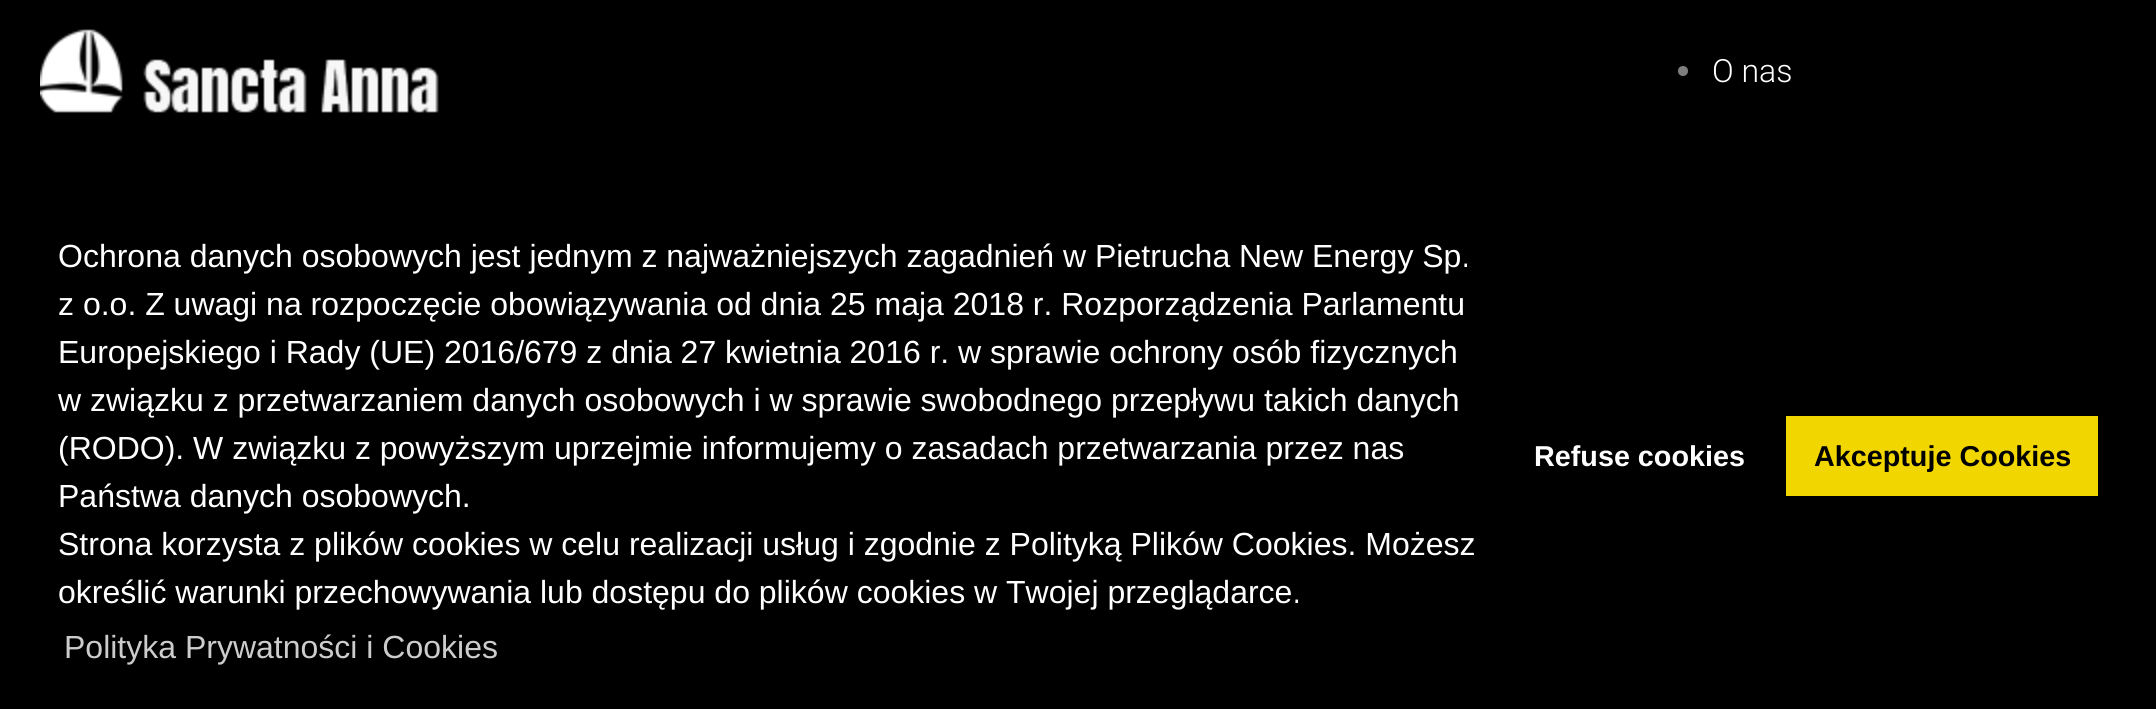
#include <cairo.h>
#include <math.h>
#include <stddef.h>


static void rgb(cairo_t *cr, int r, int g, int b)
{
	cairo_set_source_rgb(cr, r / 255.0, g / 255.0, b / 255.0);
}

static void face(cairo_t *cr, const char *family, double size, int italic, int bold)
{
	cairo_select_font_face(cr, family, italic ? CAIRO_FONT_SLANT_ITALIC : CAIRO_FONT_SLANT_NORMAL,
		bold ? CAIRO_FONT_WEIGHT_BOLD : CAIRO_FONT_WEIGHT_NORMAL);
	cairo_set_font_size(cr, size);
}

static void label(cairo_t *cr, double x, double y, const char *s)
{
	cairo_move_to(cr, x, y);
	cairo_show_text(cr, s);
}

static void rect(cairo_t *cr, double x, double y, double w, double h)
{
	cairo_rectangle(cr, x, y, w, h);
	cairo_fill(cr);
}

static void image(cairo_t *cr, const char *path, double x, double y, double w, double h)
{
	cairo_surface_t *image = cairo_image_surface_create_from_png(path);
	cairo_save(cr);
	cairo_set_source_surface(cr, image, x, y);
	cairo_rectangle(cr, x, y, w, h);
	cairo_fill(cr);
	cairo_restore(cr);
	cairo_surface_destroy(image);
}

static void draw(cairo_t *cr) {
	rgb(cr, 0, 0, 0);
	cairo_paint(cr);
	image(cr, "image0.png", 40, 29, 399, 84);
	rgb(cr, 126, 126, 126);
	cairo_arc(cr, 1683, 71, 5, 0, 2 * M_PI);
	cairo_fill(cr);
	face(cr, "Roboto Light", 32, 0, 0);
	rgb(cr, 255, 255, 255);
	label(cr, 1712, 82, "O nas");
	face(cr, "Liberation Sans", 32, 0, 0);
	label(cr, 58, 267, "Ochrona danych osobowych jest jednym z najważniejszych zagadnień w Pietrucha New Energy Sp.");
	label(cr, 58, 315, "z o.o. Z uwagi na rozpoczęcie obowiązywania od dnia 25 maja 2018 r. Rozporządzenia Parlamentu");
	label(cr, 58, 363, "Europejskiego i Rady (UE) 2016/679 z dnia 27 kwietnia 2016 r. w sprawie ochrony osób fizycznych");
	label(cr, 58, 411, "w związku z przetwarzaniem danych osobowych i w sprawie swobodnego przepływu takich danych");
	label(cr, 58, 459, "(RODO). W związku z powyższym uprzejmie informujemy o zasadach przetwarzania przez nas");
	label(cr, 58, 507, "Państwa danych osobowych.");
	label(cr, 58, 555, "Strona korzysta z plików cookies w celu realizacji usług i zgodnie z Polityką Plików Cookies. Możesz");
	label(cr, 58, 603, "określić warunki przechowywania lub dostępu do plików cookies w Twojej przeglądarce.");
	rgb(cr, 204, 204, 204);
	label(cr, 64, 658, "Polityka Prywatności i Cookies");
	face(cr, "Liberation Sans", 28.75, 0, 1);
	rgb(cr, 255, 255, 255);
	label(cr, 1534, 466, "Refuse cookies");
	rgb(cr, 241, 214, 0);
	rect(cr, 1786, 416, 312, 80);
	rgb(cr, 0, 0, 0);
	label(cr, 1814, 466, "Akceptuje Cookies");
}

int main(void) {
	cairo_surface_t *surface = cairo_image_surface_create(CAIRO_FORMAT_RGB24, 2156, 709);
	cairo_t *cr = cairo_create(surface);
	cairo_font_options_t *options = cairo_font_options_create();
	cairo_font_options_set_hint_metrics(options, CAIRO_HINT_METRICS_OFF);
	cairo_font_options_set_hint_style(options, CAIRO_HINT_STYLE_NONE);
	cairo_set_font_options(cr, options);
	cairo_set_miter_limit(cr, 4);
	draw(cr);
	cairo_surface_write_to_png(surface, "render.png");
	cairo_font_options_destroy(options);
	cairo_destroy(cr);
	cairo_surface_destroy(surface);
	return 0;
}
